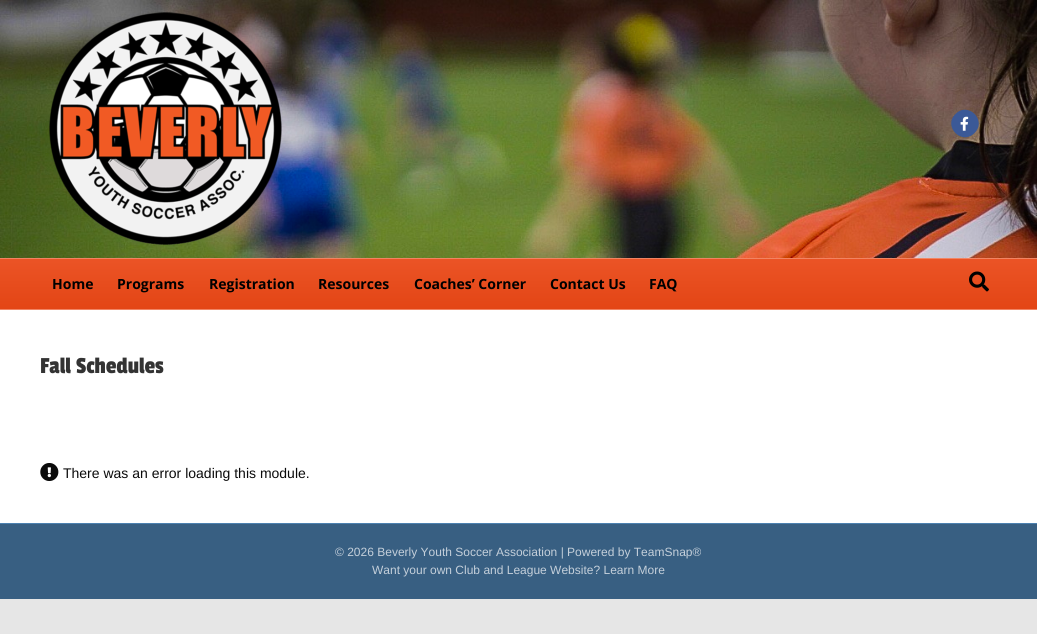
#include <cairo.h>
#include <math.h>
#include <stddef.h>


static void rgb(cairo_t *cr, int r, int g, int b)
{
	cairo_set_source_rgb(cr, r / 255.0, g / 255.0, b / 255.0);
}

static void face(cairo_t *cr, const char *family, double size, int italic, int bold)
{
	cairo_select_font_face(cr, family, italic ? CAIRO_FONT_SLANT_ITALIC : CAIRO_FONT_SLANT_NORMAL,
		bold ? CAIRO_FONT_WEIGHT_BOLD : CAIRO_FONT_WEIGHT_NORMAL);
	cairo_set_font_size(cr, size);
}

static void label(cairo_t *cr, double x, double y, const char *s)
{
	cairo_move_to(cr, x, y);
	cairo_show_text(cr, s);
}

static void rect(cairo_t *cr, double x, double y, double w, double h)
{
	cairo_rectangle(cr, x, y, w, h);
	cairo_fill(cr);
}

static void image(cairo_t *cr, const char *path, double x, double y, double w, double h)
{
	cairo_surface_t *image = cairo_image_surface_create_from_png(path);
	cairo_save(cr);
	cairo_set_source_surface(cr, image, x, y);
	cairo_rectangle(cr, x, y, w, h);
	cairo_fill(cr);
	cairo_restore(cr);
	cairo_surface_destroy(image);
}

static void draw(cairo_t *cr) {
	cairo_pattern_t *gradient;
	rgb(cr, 230, 230, 230);
	cairo_paint(cr);
	image(cr, "image0.png", 0, 0, 1037, 258);
	image(cr, "image1.png", 49, 12, 233, 233);
	rgb(cr, 59, 89, 151);
	cairo_new_path(cr);
	cairo_move_to(cr, 955.5, 114);
	cairo_curve_to(cr, 968, 101, 987.5, 120.5, 974.5, 133);
	cairo_curve_to(cr, 962, 146, 942.5, 126.5, 955.5, 114);
	cairo_close_path(cr);
	cairo_fill(cr);
	image(cr, "image2.png", 960, 116, 9, 15);
	gradient = cairo_pattern_create_linear(519, 259, 519, 309);
	cairo_pattern_add_color_stop_rgba(gradient, 0, 0.922, 0.329, 0.149, 1);
	cairo_pattern_add_color_stop_rgba(gradient, 1, 0.89, 0.271, 0.082, 1);
	cairo_set_source(cr, gradient);
	cairo_pattern_destroy(gradient);
	rect(cr, 0, 259, 1037, 50);
	rgb(cr, 241, 132, 99);
	rect(cr, 0, 258, 1037, 1);
	rect(cr, 0, 309, 1037, 1);
	face(cr, "Open Sans", 14, 0, 1);
	rgb(cr, 0, 0, 0);
	label(cr, 52, 289, "Home");
	label(cr, 117, 289, "Programs");
	label(cr, 209, 289, "Registration");
	label(cr, 318, 289, "Resources");
	label(cr, 414, 289, "Coaches’ Corner");
	label(cr, 550, 289, "Contact Us");
	label(cr, 649, 289, "FAQ");
	image(cr, "image3.png", 969, 271, 20, 21);
	rgb(cr, 255, 255, 255);
	rect(cr, 0, 310, 1037, 213);
	face(cr, "Passion One", 24, 0, 0);
	rgb(cr, 51, 51, 51);
	label(cr, 40, 373, "Fall Schedules");
	image(cr, "image4.png", 40, 463, 19, 18);
	face(cr, "Liberation Sans", 14, 0, 0);
	rgb(cr, 10, 10, 10);
	label(cr, 63, 478, "There was an error loading this module.");
	rgb(cr, 56, 95, 130);
	rect(cr, 0, 524, 1037, 75);
	rgb(cr, 76, 129, 176);
	rect(cr, 0, 523, 1037, 1);
	face(cr, "Liberation Sans", 12, 0, 0);
	rgb(cr, 196, 207, 218);
	label(cr, 335, 556, "© 2026 Beverly Youth Soccer Association | Powered by TeamSnap®");
	label(cr, 372, 574, "Want your own Club and League Website? Learn More");
}

int main(void) {
	cairo_surface_t *surface = cairo_image_surface_create(CAIRO_FORMAT_RGB24, 1037, 634);
	cairo_t *cr = cairo_create(surface);
	cairo_font_options_t *options = cairo_font_options_create();
	cairo_font_options_set_hint_metrics(options, CAIRO_HINT_METRICS_OFF);
	cairo_font_options_set_hint_style(options, CAIRO_HINT_STYLE_NONE);
	cairo_set_font_options(cr, options);
	cairo_set_miter_limit(cr, 4);
	draw(cr);
	cairo_surface_write_to_png(surface, "render.png");
	cairo_font_options_destroy(options);
	cairo_destroy(cr);
	cairo_surface_destroy(surface);
	return 0;
}
